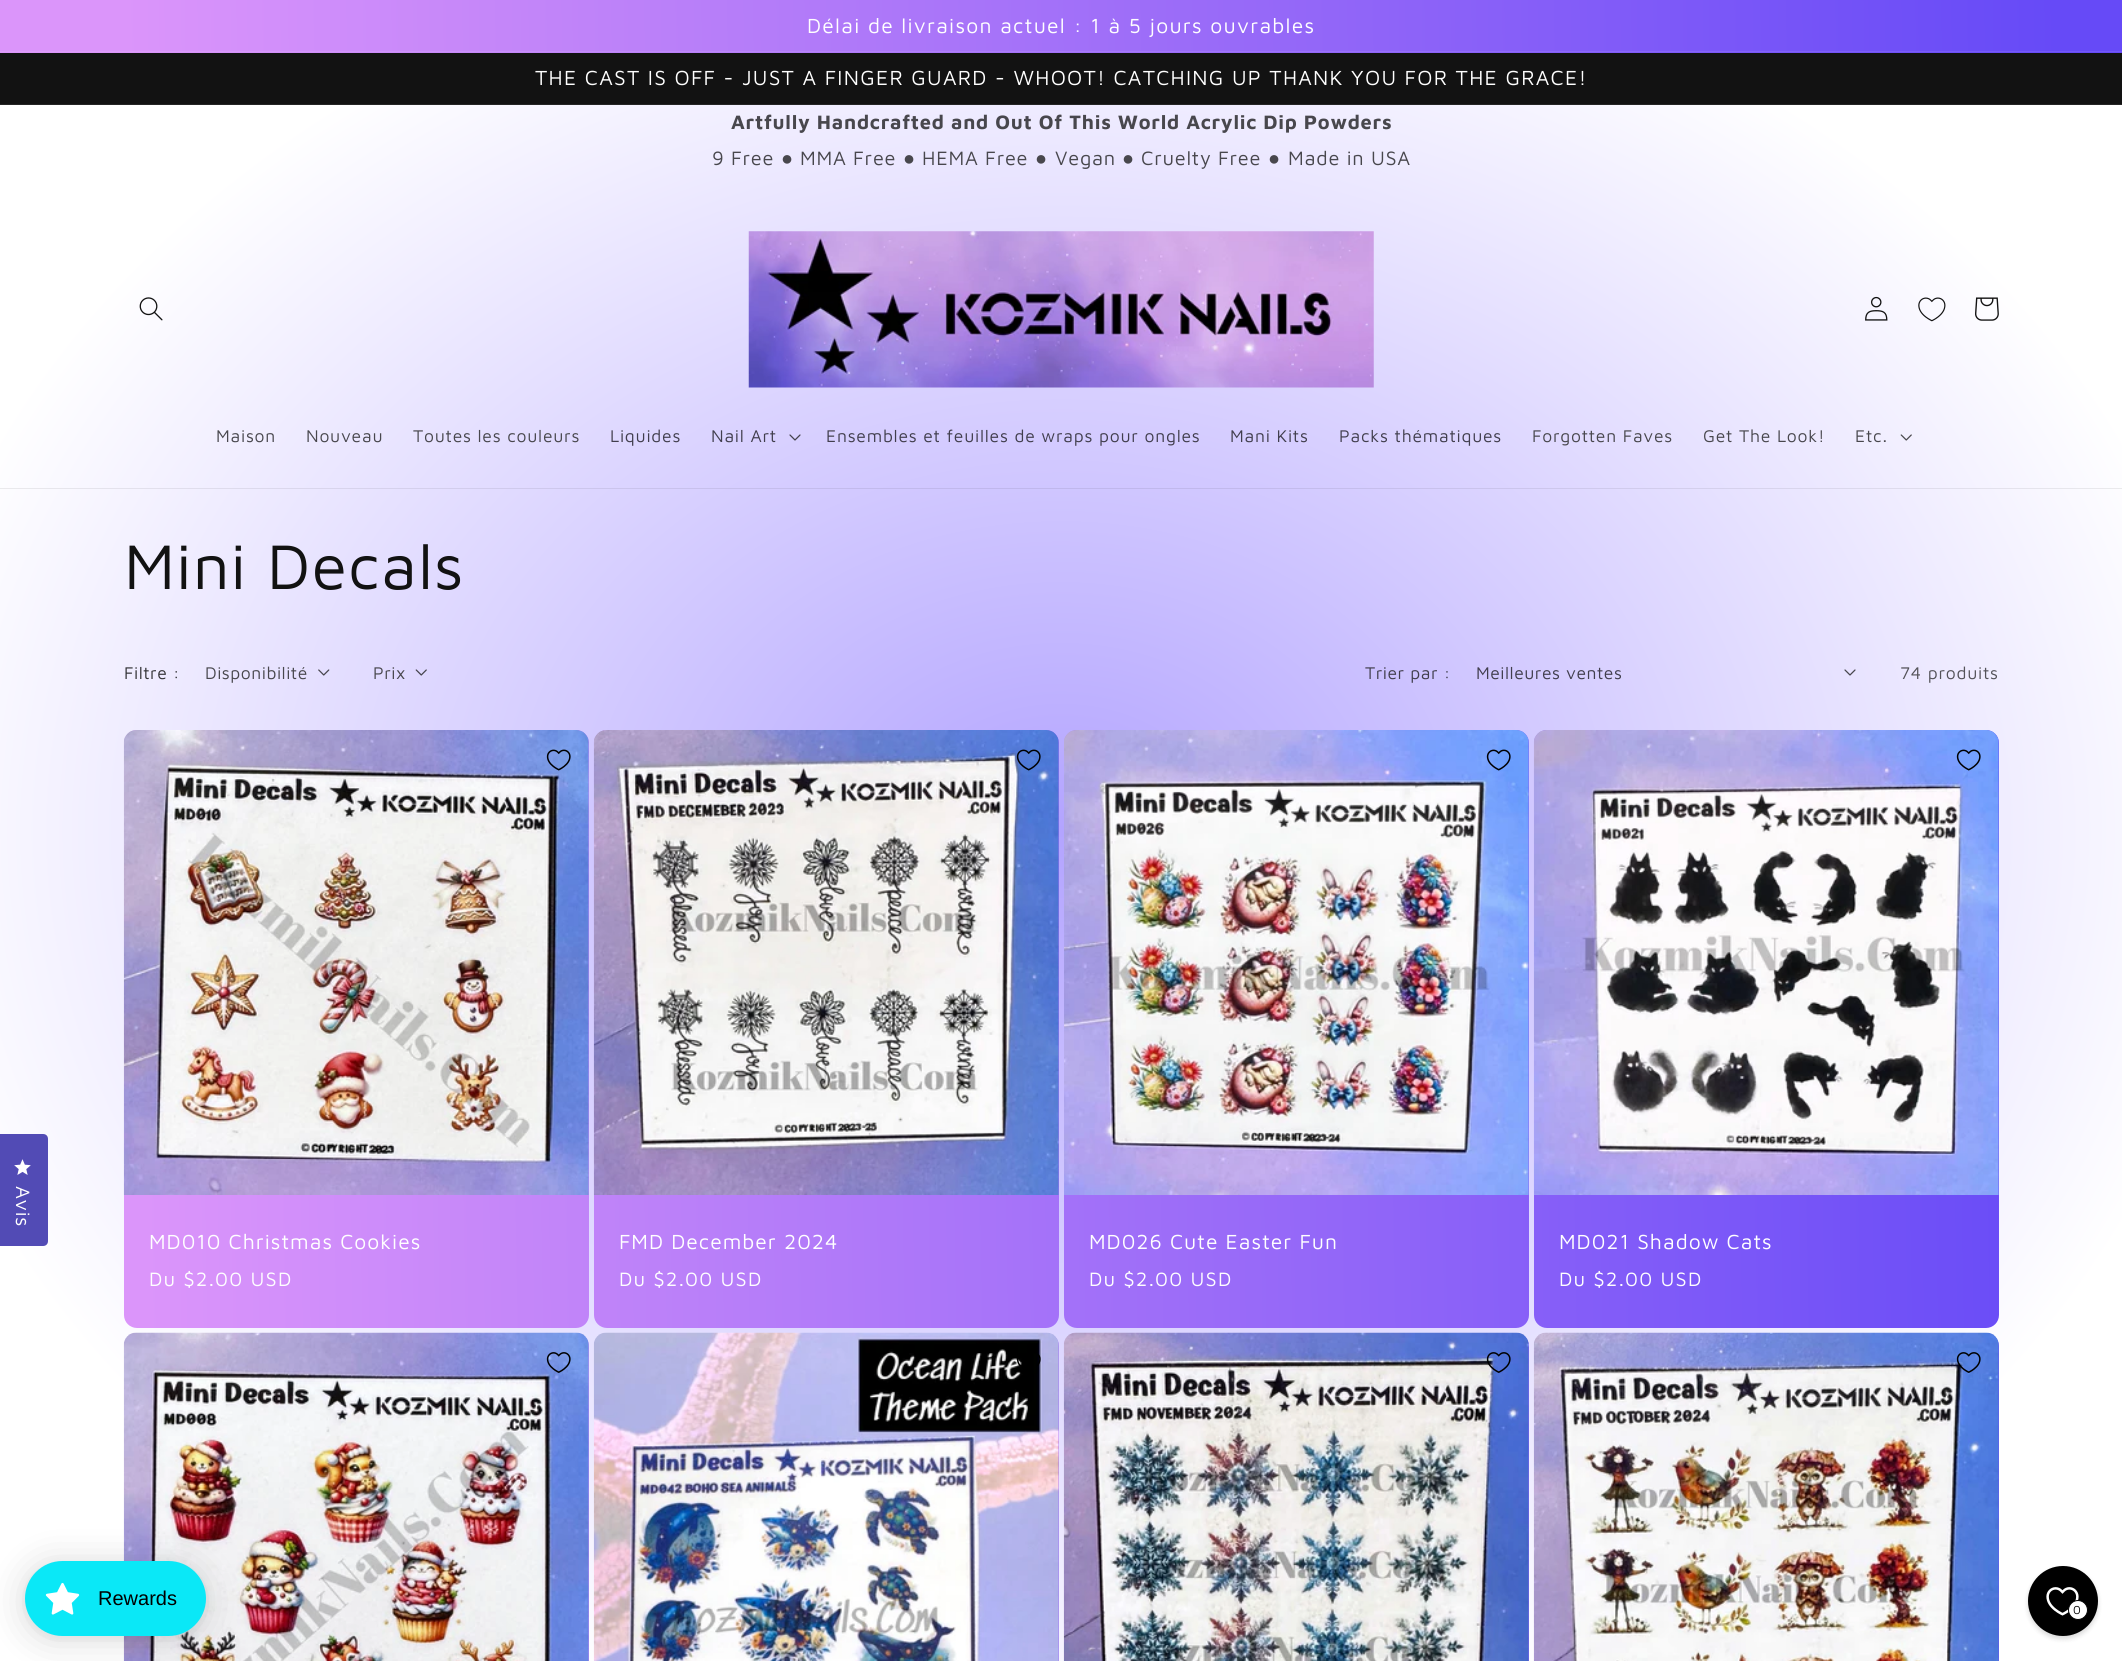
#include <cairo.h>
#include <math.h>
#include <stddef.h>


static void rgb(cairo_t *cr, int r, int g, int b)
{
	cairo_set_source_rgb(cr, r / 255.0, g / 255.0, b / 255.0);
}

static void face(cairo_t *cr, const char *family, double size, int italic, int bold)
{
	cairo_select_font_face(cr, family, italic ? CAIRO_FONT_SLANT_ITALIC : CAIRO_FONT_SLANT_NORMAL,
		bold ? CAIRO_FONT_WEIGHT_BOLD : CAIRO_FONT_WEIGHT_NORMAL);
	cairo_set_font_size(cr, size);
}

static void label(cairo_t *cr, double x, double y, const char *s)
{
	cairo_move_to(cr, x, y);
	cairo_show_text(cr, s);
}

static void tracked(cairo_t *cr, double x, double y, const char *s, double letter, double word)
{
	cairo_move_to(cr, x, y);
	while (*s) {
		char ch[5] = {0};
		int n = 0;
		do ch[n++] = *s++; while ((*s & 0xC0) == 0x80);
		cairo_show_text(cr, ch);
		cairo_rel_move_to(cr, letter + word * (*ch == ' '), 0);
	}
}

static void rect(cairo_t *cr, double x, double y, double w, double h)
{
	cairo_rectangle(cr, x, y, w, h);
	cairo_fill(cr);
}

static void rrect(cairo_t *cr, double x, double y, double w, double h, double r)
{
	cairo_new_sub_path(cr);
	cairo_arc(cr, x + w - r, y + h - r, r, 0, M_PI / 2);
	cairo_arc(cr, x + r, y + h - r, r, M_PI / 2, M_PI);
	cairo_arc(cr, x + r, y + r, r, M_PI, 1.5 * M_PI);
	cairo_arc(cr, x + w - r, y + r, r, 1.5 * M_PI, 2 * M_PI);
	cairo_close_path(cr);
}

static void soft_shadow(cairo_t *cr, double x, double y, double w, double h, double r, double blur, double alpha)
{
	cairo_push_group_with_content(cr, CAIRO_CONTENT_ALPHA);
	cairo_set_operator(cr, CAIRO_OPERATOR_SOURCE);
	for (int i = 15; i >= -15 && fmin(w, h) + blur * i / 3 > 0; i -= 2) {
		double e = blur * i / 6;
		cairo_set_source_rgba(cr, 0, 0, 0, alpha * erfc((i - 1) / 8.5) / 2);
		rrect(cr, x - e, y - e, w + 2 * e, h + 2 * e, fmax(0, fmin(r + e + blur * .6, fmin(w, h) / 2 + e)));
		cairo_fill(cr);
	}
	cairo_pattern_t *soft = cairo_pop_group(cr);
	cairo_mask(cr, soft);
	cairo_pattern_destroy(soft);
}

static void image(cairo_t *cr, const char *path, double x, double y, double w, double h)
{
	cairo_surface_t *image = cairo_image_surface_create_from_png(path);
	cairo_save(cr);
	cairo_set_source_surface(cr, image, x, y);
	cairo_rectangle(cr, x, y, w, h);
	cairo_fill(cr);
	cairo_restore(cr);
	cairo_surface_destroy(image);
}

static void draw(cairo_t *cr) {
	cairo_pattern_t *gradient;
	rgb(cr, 255, 255, 255);
	cairo_paint(cr);
	gradient = cairo_pattern_create_radial(0, 0, 0, 0, 0, 1);
	cairo_pattern_set_matrix(gradient, &(cairo_matrix_t){1.0 / 1501, 0, 0, 1.0 / 1175, -1.0 * 1061 / 1501, -1.0 * 831 / 1175});
	cairo_pattern_add_color_stop_rgba(gradient, 0, 0.702, 0.643, 1, 1);
	cairo_pattern_add_color_stop_rgba(gradient, 0.79, 1, 1, 1, 1);
	cairo_pattern_add_color_stop_rgba(gradient, 0.97, 1, 1, 1, 1);
	cairo_set_source(cr, gradient);
	cairo_pattern_destroy(gradient);
	rect(cr, 0, 105, 2122, 1556);
	gradient = cairo_pattern_create_radial(0, 0, 0, 0, 0, 1);
	cairo_pattern_set_matrix(gradient, &(cairo_matrix_t){1.0 / 1501, 0, 0, 1.0 / 1175, -1.0 * 1061 / 1501, -1.0 * 831 / 1175});
	cairo_pattern_add_color_stop_rgba(gradient, 0, 0.651, 0.596, 0.925, 1);
	cairo_pattern_add_color_stop_rgba(gradient, 0.79, 0.925, 0.925, 0.925, 1);
	cairo_pattern_add_color_stop_rgba(gradient, 0.97, 0.925, 0.925, 0.925, 1);
	cairo_set_source(cr, gradient);
	cairo_pattern_destroy(gradient);
	rect(cr, 0, 488, 2122, 1);
	gradient = cairo_pattern_create_linear(-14, 849, 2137, 812);
	cairo_pattern_add_color_stop_rgba(gradient, 0.07, 0.859, 0.584, 0.98, 1);
	cairo_pattern_add_color_stop_rgba(gradient, 0.97, 0.4, 0.29, 0.969, 1);
	cairo_set_source(cr, gradient);
	cairo_pattern_destroy(gradient);
	rect(cr, 0, 0, 2122, 53);
	gradient = cairo_pattern_create_linear(-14, 849, 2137, 812);
	cairo_pattern_add_color_stop_rgba(gradient, 0.07, 0.871, 0.616, 0.98, 1);
	cairo_pattern_add_color_stop_rgba(gradient, 0.97, 0.447, 0.345, 0.973, 1);
	cairo_set_source(cr, gradient);
	cairo_pattern_destroy(gradient);
	rect(cr, 0, 51, 2122, 1);
	face(cr, "Maven Pro", 21.1, 0, 0);
	rgb(cr, 255, 255, 255);
	tracked(cr, 807, 33, "Délai de livraison actuel : 1 à 5 jours ouvrables", 1.25, 0);
	rgb(cr, 18, 18, 18);
	rect(cr, 0, 53, 2122, 51);
	rgb(cr, 37, 37, 37);
	rect(cr, 0, 104, 2122, 1);
	rgb(cr, 255, 255, 255);
	tracked(cr, 535, 85, "THE CAST IS OFF - JUST A FINGER GUARD - WHOOT! CATCHING UP THANK YOU FOR THE GRACE!", 1.25, 0);
	face(cr, "Maven Pro", 20, 0, 1);
	rgb(cr, 72, 71, 77);
	tracked(cr, 731, 129, "Artfully Handcrafted and Out Of This World Acrylic Dip Powders", 0.75, 0);
	face(cr, "Maven Pro", 20, 0, 0);
	tracked(cr, 712, 165, "9 Free", 0.75, 0);
	face(cr, "Liberation Sans", 20, 0, 0);
	tracked(cr, 781, 165, "●", 0.75, 0);
	face(cr, "Maven Pro", 20, 0, 0);
	tracked(cr, 800, 165, "MMA Free", 0.75, 0);
	face(cr, "Liberation Sans", 20, 0, 0);
	tracked(cr, 903, 165, "●", 0.75, 0);
	face(cr, "Maven Pro", 20, 0, 0);
	tracked(cr, 922, 165, "HEMA Free", 0.75, 0);
	face(cr, "Liberation Sans", 20, 0, 0);
	tracked(cr, 1035, 165, "●", 0.75, 0);
	face(cr, "Maven Pro", 20, 0, 0);
	tracked(cr, 1055, 165, "Vegan", 0.75, 0);
	face(cr, "Liberation Sans", 20, 0, 0);
	tracked(cr, 1122, 165, "●", 0.75, 0);
	face(cr, "Maven Pro", 20, 0, 0);
	tracked(cr, 1141, 165, "Cruelty Free", 0.75, 0);
	face(cr, "Liberation Sans", 20, 0, 0);
	tracked(cr, 1268, 165, "●", 0.75, 0);
	face(cr, "Maven Pro", 20, 0, 0);
	tracked(cr, 1288, 165, "Made in USA", 0.75, 0);
	image(cr, "image0.png", 139, 297, 24, 24);
	image(cr, "image1.png", 748, 231, 626, 157);
	image(cr, "image2.png", 1865, 296, 23, 25);
	image(cr, "image3.png", 1918, 297, 28, 25);
	image(cr, "image4.png", 1975, 297, 24, 24);
	face(cr, "Maven Pro", 17.5, 0, 0);
	tracked(cr, 216, 442, "Maison", 0.75, 0);
	tracked(cr, 306, 442, "Nouveau", 0.75, 0);
	tracked(cr, 413, 442, "Toutes les couleurs", 0.75, 0);
	rgb(cr, 65, 62, 77);
	tracked(cr, 610, 442, "Liquides", 0.75, 0);
	tracked(cr, 711, 442, "Nail Art", 0.75, 0);
	image(cr, "image5.png", 789, 434, 12, 7);
	tracked(cr, 826, 442, "Ensembles et feuilles de wraps pour ongles", 0.75, 0);
	tracked(cr, 1230, 442, "Mani Kits", 0.75, 0);
	tracked(cr, 1339, 442, "Packs thématiques", 0.75, 0);
	rgb(cr, 72, 71, 77);
	tracked(cr, 1532, 442, "Forgotten Faves", 0.75, 0);
	tracked(cr, 1703, 442, "Get The Look!", 0.75, 0);
	tracked(cr, 1855, 442, "Etc.", 0.75, 0);
	image(cr, "image6.png", 1900, 434, 12, 7);
	rgb(cr, 82, 75, 181);
	cairo_new_path(cr);
	cairo_move_to(cr, -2, 1134);
	cairo_line_to(cr, 43, 1134);
	cairo_curve_to(cr, 46, 1134, 48, 1136, 48, 1139);
	cairo_line_to(cr, 48, 1241);
	cairo_curve_to(cr, 48, 1244, 46, 1246, 43, 1246);
	cairo_line_to(cr, -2, 1246);
	cairo_close_path(cr);
	cairo_fill(cr);
	image(cr, "image7.png", 14, 1159, 17, 16);
	face(cr, "Maven Pro", 20, 0, 0);
	rgb(cr, 255, 255, 255);
	cairo_save(cr);
	cairo_translate(cr, 16, 1186);
	cairo_rotate(cr, 90.1 * M_PI / 180);
	tracked(cr, 0, 0, "Avis", 0.75, 0);
	cairo_restore(cr);
	face(cr, "Maven Pro", 65, 0, 0);
	rgb(cr, 18, 18, 18);
	tracked(cr, 124, 589, "Mini Decals", 1, 0);
	face(cr, "Maven Pro", 17.5, 0, 0);
	rgb(cr, 51, 51, 54);
	tracked(cr, 124, 679, "Filtre :", 0.5, 0);
	rgb(cr, 72, 71, 77);
	tracked(cr, 205, 679, "Disponibilité", 0.5, 0);
	image(cr, "image8.png", 318, 669, 12, 7);
	tracked(cr, 373, 679, "Prix", 0.5, 0);
	image(cr, "image9.png", 415, 669, 12, 7);
	rgb(cr, 65, 62, 77);
	tracked(cr, 1365, 679, "Trier par :", 0.5, 0);
	tracked(cr, 1476, 679, "Meilleures ventes", 0.5, 0);
	image(cr, "image10.png", 1844, 669, 12, 7);
	rgb(cr, 84, 83, 89);
	tracked(cr, 1900, 679, "74 produits", 0.75, 0);
	gradient = cairo_pattern_create_linear(-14, 849, 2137, 812);
	cairo_pattern_add_color_stop_rgba(gradient, 0.07, 0.859, 0.584, 0.98, 1);
	cairo_pattern_add_color_stop_rgba(gradient, 0.97, 0.4, 0.29, 0.969, 1);
	cairo_set_source(cr, gradient);
	cairo_pattern_destroy(gradient);
	rrect(cr, 124, 730, 465, 598, 13);
	cairo_fill(cr);
	image(cr, "image11.png", 123, 730, 466, 465);
	image(cr, "image12.png", 546, 749, 25, 22);
	face(cr, "Maven Pro", 21.1, 0, 0);
	rgb(cr, 255, 255, 255);
	tracked(cr, 149, 1249, "MD010 Christmas Cookies", 1, 0);
	face(cr, "Maven Pro", 20, 0, 0);
	tracked(cr, 149, 1286, "Du $2.00 USD", 1.25, 0);
	gradient = cairo_pattern_create_linear(-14, 849, 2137, 812);
	cairo_pattern_add_color_stop_rgba(gradient, 0.07, 0.859, 0.584, 0.98, 1);
	cairo_pattern_add_color_stop_rgba(gradient, 0.97, 0.4, 0.29, 0.969, 1);
	cairo_set_source(cr, gradient);
	cairo_pattern_destroy(gradient);
	rrect(cr, 594, 730, 465, 598, 13);
	cairo_fill(cr);
	image(cr, "image13.png", 593, 730, 466, 465);
	image(cr, "image14.png", 1016, 749, 25, 22);
	face(cr, "Maven Pro", 21.1, 0, 0);
	rgb(cr, 255, 255, 255);
	tracked(cr, 619, 1249, "FMD December 2024", 1, 0);
	face(cr, "Maven Pro", 20, 0, 0);
	tracked(cr, 619, 1286, "Du $2.00 USD", 1.25, 0);
	gradient = cairo_pattern_create_linear(-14, 849, 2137, 812);
	cairo_pattern_add_color_stop_rgba(gradient, 0.07, 0.859, 0.584, 0.98, 1);
	cairo_pattern_add_color_stop_rgba(gradient, 0.97, 0.4, 0.29, 0.969, 1);
	cairo_set_source(cr, gradient);
	cairo_pattern_destroy(gradient);
	rrect(cr, 1064, 730, 465, 598, 13);
	cairo_fill(cr);
	image(cr, "image15.png", 1064, 730, 465, 465);
	image(cr, "image16.png", 1486, 749, 25, 22);
	face(cr, "Maven Pro", 21.1, 0, 0);
	rgb(cr, 255, 255, 255);
	tracked(cr, 1089, 1249, "MD026 Cute Easter Fun", 1, 0);
	face(cr, "Maven Pro", 20, 0, 0);
	tracked(cr, 1089, 1286, "Du $2.00 USD", 1.25, 0);
	gradient = cairo_pattern_create_linear(-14, 849, 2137, 812);
	cairo_pattern_add_color_stop_rgba(gradient, 0.07, 0.859, 0.584, 0.98, 1);
	cairo_pattern_add_color_stop_rgba(gradient, 0.97, 0.4, 0.29, 0.969, 1);
	cairo_set_source(cr, gradient);
	cairo_pattern_destroy(gradient);
	rrect(cr, 1534, 730, 465, 598, 13);
	cairo_fill(cr);
	image(cr, "image17.png", 1533, 730, 466, 465);
	image(cr, "image18.png", 1956, 749, 25, 22);
	face(cr, "Maven Pro", 21.1, 0, 0);
	rgb(cr, 255, 255, 255);
	tracked(cr, 1559, 1249, "MD021 Shadow Cats", 1, 0);
	face(cr, "Maven Pro", 20, 0, 0);
	tracked(cr, 1559, 1286, "Du $2.00 USD", 1.25, 0);
	gradient = cairo_pattern_create_linear(-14, 849, 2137, 812);
	cairo_pattern_add_color_stop_rgba(gradient, 0.07, 0.859, 0.584, 0.98, 1);
	cairo_pattern_add_color_stop_rgba(gradient, 0.97, 0.4, 0.29, 0.969, 1);
	cairo_set_source(cr, gradient);
	cairo_pattern_destroy(gradient);
	cairo_new_path(cr);
	cairo_move_to(cr, 137, 1333);
	cairo_line_to(cr, 576, 1333);
	cairo_curve_to(cr, 583, 1333, 589, 1339, 589, 1346);
	cairo_line_to(cr, 589, 1661);
	cairo_line_to(cr, 124, 1661);
	cairo_line_to(cr, 124, 1346);
	cairo_curve_to(cr, 124, 1339, 130, 1333, 137, 1333);
	cairo_close_path(cr);
	cairo_fill(cr);
	image(cr, "image19.png", 123, 1332, 466, 329);
	image(cr, "image20.png", 546, 1352, 25, 21);
	cairo_new_path(cr);
	cairo_move_to(cr, 607, 1333);
	cairo_line_to(cr, 1046, 1333);
	cairo_curve_to(cr, 1053, 1333, 1059, 1339, 1059, 1346);
	cairo_line_to(cr, 1059, 1661);
	cairo_line_to(cr, 594, 1661);
	cairo_line_to(cr, 594, 1346);
	cairo_curve_to(cr, 594, 1339, 600, 1333, 607, 1333);
	cairo_close_path(cr);
	cairo_fill(cr);
	image(cr, "image21.png", 593, 1332, 466, 329);
	image(cr, "image22.png", 1016, 1354, 25, 12);
	cairo_new_path(cr);
	cairo_move_to(cr, 1077, 1333);
	cairo_line_to(cr, 1516, 1333);
	cairo_curve_to(cr, 1523, 1333, 1529, 1339, 1529, 1346);
	cairo_line_to(cr, 1529, 1661);
	cairo_line_to(cr, 1064, 1661);
	cairo_line_to(cr, 1064, 1346);
	cairo_curve_to(cr, 1064, 1339, 1070, 1333, 1077, 1333);
	cairo_close_path(cr);
	cairo_fill(cr);
	image(cr, "image23.png", 1063, 1332, 466, 329);
	image(cr, "image24.png", 1486, 1352, 25, 21);
	cairo_new_path(cr);
	cairo_move_to(cr, 1547, 1333);
	cairo_line_to(cr, 1986, 1333);
	cairo_curve_to(cr, 1993, 1333, 1999, 1339, 1999, 1346);
	cairo_line_to(cr, 1999, 1661);
	cairo_line_to(cr, 1534, 1661);
	cairo_line_to(cr, 1534, 1346);
	cairo_curve_to(cr, 1534, 1339, 1540, 1333, 1547, 1333);
	cairo_close_path(cr);
	cairo_fill(cr);
	image(cr, "image25.png", 1533, 1332, 466, 329);
	image(cr, "image26.png", 1956, 1352, 25, 21);
	rgb(cr, 0, 0, 0);
	soft_shadow(cr, 25, 1564, 181, 75, 37.5, 19, 0.15);
	soft_shadow(cr, 25, 1563, 181, 75, 37.5, 4, 0.05);
	rgb(cr, 10, 232, 247);
	rrect(cr, 25, 1561, 181, 75, 37.5);
	cairo_fill(cr);
	image(cr, "image27.png", 45, 1582, 35, 33);
	face(cr, "Liberation Sans", 20, 0, 0);
	rgb(cr, 0, 0, 0);
	label(cr, 98, 1605, "Rewards");
	rgb(cr, 0, 0, 0);
	soft_shadow(cr, 2028, 1569, 70, 70, 35, 2.5, 0.15);
	rgb(cr, 0, 0, 0);
	cairo_arc(cr, 2063, 1601, 33.5, 0, 2 * M_PI);
	cairo_fill_preserve(cr);
	cairo_set_line_width(cr, 3);
	cairo_stroke(cr);
	image(cr, "image28.png", 2046, 1587, 33, 29);
	rgb(cr, 255, 255, 255);
	cairo_arc(cr, 2078, 1610, 9.5, 0, 2 * M_PI);
	cairo_fill_preserve(cr);
	rgb(cr, 0, 0, 0);
	cairo_set_line_width(cr, 1);
	cairo_stroke(cr);
	face(cr, "Maven Pro", 12, 0, 0);
	tracked(cr, 2073, 1614, "0", 0.75, 0);
}

int main(void) {
	cairo_surface_t *surface = cairo_image_surface_create(CAIRO_FORMAT_RGB24, 2122, 1661);
	cairo_t *cr = cairo_create(surface);
	cairo_font_options_t *options = cairo_font_options_create();
	cairo_font_options_set_hint_metrics(options, CAIRO_HINT_METRICS_OFF);
	cairo_font_options_set_hint_style(options, CAIRO_HINT_STYLE_NONE);
	cairo_set_font_options(cr, options);
	cairo_set_miter_limit(cr, 4);
	draw(cr);
	cairo_surface_write_to_png(surface, "render.png");
	cairo_font_options_destroy(options);
	cairo_destroy(cr);
	cairo_surface_destroy(surface);
	return 0;
}
